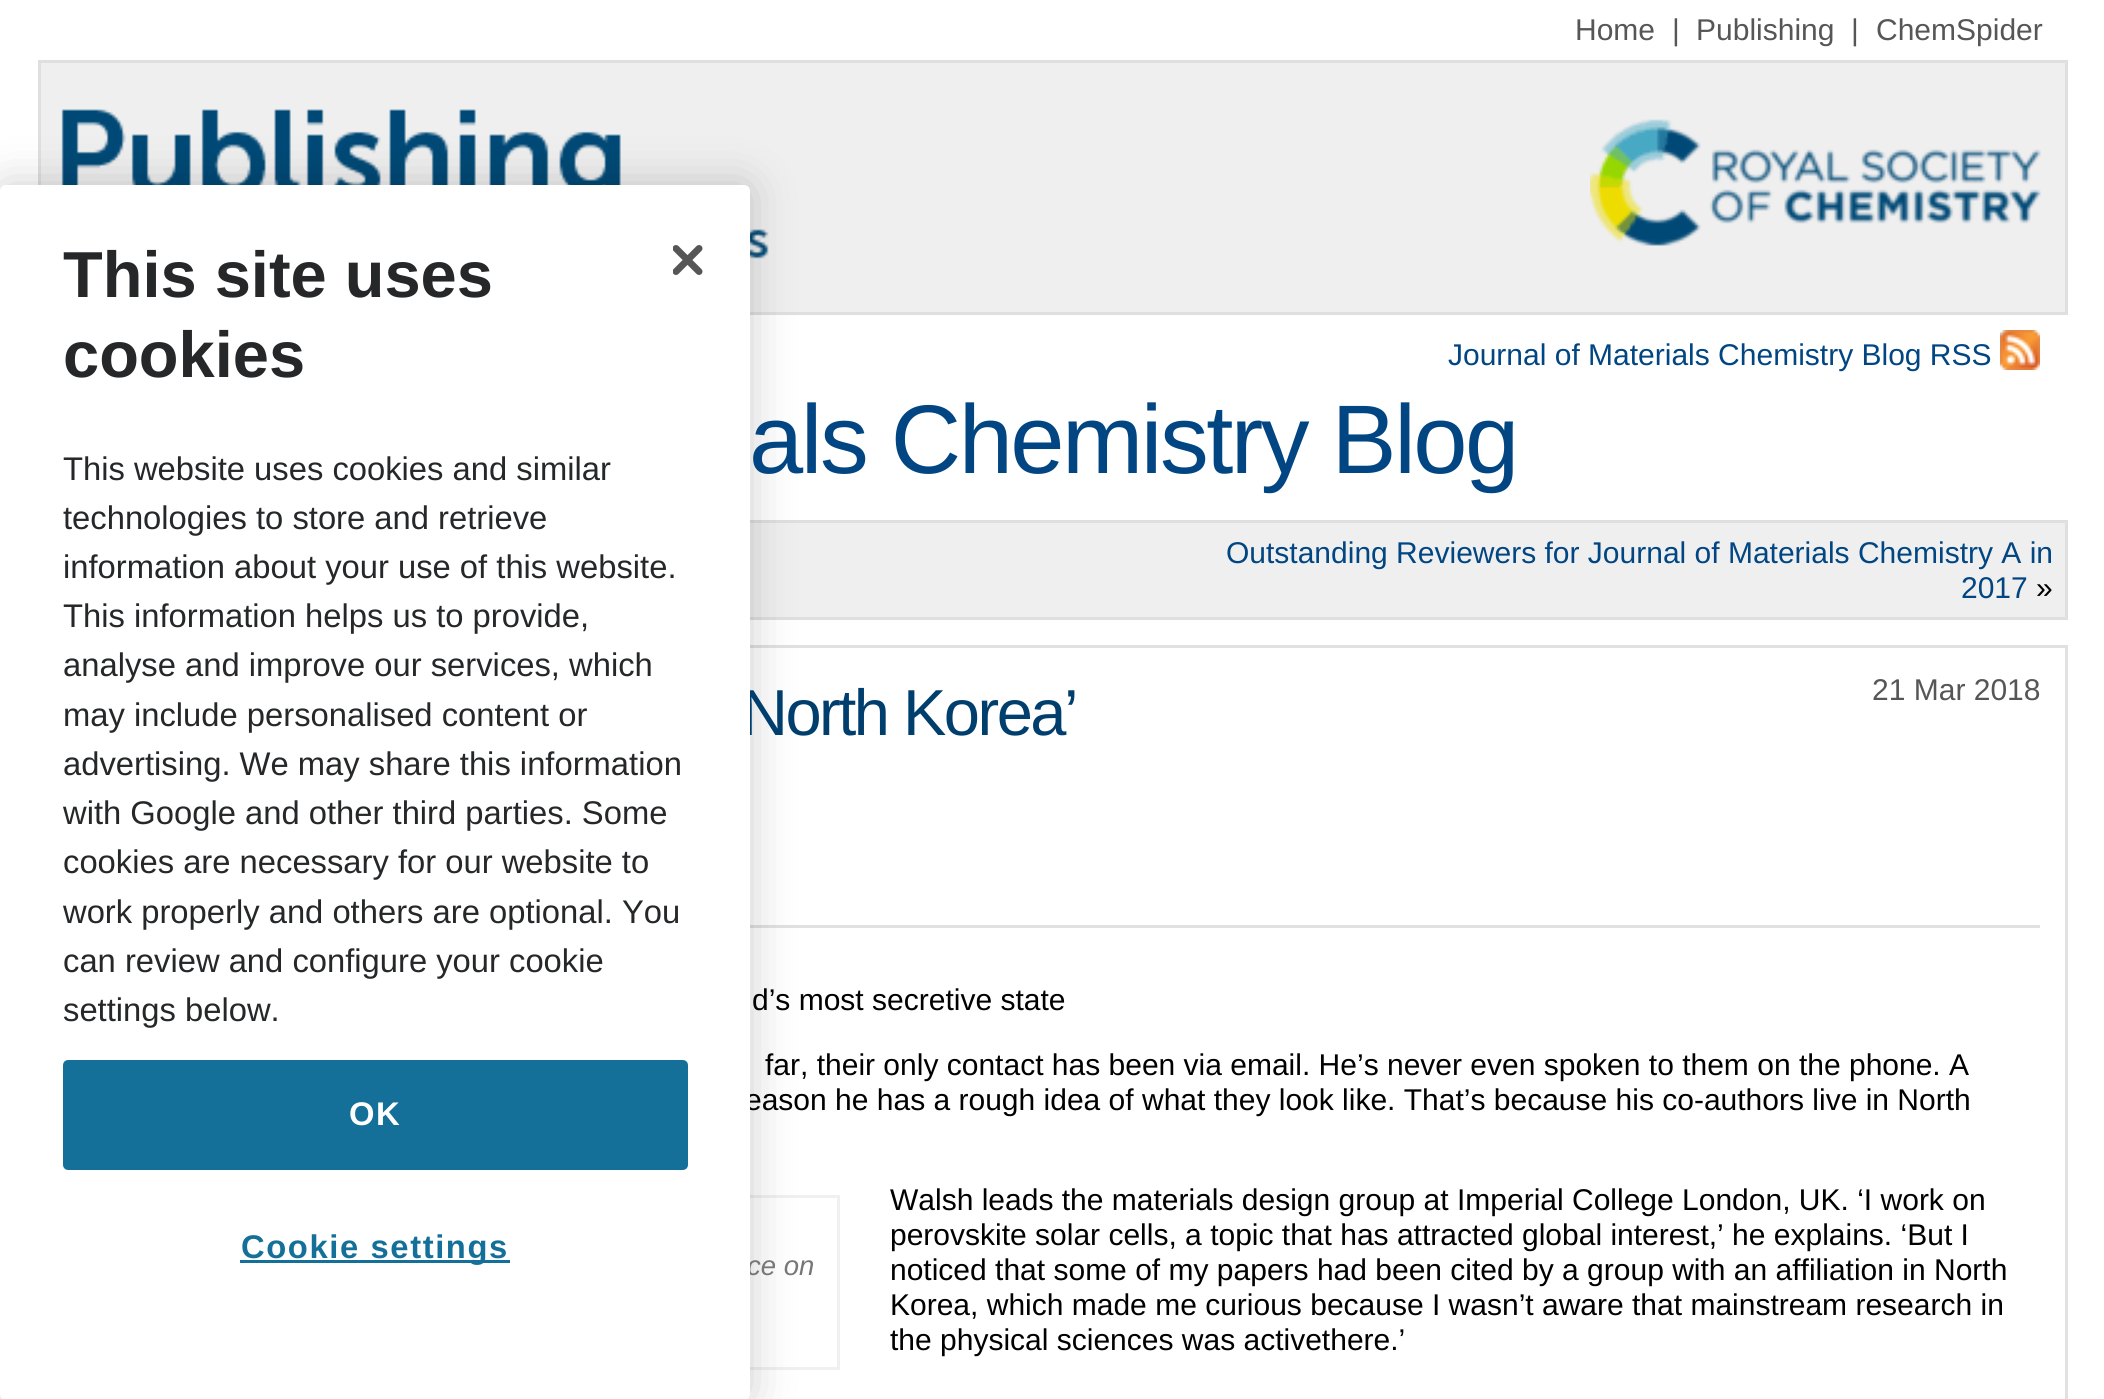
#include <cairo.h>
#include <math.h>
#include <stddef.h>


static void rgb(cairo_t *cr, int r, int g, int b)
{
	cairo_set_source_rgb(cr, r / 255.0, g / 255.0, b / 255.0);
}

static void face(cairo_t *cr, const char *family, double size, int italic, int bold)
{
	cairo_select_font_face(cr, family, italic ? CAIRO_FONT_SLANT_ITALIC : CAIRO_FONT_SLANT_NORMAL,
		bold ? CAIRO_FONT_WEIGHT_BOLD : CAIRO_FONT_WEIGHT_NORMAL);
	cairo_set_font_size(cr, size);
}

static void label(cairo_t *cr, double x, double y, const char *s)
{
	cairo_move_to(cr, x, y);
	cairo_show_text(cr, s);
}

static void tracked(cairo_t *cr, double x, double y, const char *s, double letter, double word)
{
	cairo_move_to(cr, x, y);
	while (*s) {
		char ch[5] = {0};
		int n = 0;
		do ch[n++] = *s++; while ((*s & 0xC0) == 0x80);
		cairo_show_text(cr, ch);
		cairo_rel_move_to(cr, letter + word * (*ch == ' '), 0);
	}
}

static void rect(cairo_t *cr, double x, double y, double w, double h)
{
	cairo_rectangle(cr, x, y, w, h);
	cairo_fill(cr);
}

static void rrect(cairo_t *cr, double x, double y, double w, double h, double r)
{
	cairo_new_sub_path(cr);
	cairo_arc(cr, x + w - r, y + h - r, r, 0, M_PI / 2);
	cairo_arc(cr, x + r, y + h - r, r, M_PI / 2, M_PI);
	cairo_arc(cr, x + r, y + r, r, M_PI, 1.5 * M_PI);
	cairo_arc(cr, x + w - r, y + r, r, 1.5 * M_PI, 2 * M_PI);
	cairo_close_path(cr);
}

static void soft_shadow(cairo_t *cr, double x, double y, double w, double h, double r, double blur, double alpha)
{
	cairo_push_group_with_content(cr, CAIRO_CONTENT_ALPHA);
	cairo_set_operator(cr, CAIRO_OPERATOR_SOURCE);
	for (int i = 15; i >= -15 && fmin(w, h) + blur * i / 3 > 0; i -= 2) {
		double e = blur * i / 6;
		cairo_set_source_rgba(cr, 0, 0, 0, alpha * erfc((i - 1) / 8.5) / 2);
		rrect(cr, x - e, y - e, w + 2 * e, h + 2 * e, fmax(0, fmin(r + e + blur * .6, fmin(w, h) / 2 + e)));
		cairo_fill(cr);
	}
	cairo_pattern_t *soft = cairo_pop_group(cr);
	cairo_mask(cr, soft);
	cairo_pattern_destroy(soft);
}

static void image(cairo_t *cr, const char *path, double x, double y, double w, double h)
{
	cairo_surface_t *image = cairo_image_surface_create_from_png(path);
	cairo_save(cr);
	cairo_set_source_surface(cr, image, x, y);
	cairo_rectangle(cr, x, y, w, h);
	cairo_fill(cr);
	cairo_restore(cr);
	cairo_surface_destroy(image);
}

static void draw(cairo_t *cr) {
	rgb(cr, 255, 255, 255);
	cairo_paint(cr);
	rgb(cr, 239, 239, 239);
	cairo_rectangle(cr, 39.5, 61.5, 2027, 252);
	cairo_fill_preserve(cr);
	rgb(cr, 223, 223, 223);
	cairo_set_line_width(cr, 3);
	cairo_stroke(cr);
	image(cr, "image1.png", 61, 109, 708, 150);
	rgb(cr, 239, 239, 239);
	rect(cr, 750, 523, 1315, 94);
	cairo_rectangle(cr, 39.5, 521.5, 2027, 97);
	rgb(cr, 223, 223, 223);
	cairo_stroke(cr);
	cairo_rectangle(cr, 39.5, 646.5, 2027, 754);
	rgb(cr, 225, 225, 225);
	cairo_stroke(cr);
	rect(cr, 750, 925, 1290, 3);
	cairo_rectangle(cr, 66.5, 1196.5, 772, 172);
	rgb(cr, 240, 240, 240);
	cairo_stroke(cr);
	rgb(cr, 0, 0, 0);
	soft_shadow(cr, 0, 185, 750, 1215, 6, 22.5, 0.2);
	face(cr, "Liberation Sans", 65, 0, 0);
	rgb(cr, 0, 62, 110);
	tracked(cr, 741, 735, "North Korea’", -2.5, 0);
	face(cr, "Liberation Sans", 30, 0, 0);
	rgb(cr, 0, 0, 0);
	label(cr, 745, 1110, "eason he has a rough idea of what they look like. That’s because his co-authors live in North");
	face(cr, "Liberation Sans", 27.5, 1, 0);
	rgb(cr, 119, 119, 119);
	label(cr, 747, 1275, "ce on");
	rgb(cr, 255, 255, 255);
	rrect(cr, 0, 185, 750, 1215, 6);
	cairo_fill(cr);
	face(cr, "Liberation Sans", 65, 0, 1);
	rgb(cr, 37, 39, 41);
	label(cr, 63, 297, "This site uses");
	label(cr, 63, 377, "cookies");
	face(cr, "Liberation Sans", 32.75, 0, 0);
	label(cr, 63, 480, "This website uses cookies and similar");
	label(cr, 63, 529, "technologies to store and retrieve");
	label(cr, 63, 578, "information about your use of this website.");
	label(cr, 63, 627, "This information helps us to provide,");
	label(cr, 63, 676, "analyse and improve our services, which");
	label(cr, 63, 726, "may include personalised content or");
	label(cr, 63, 775, "advertising. We may share this information");
	label(cr, 63, 824, "with Google and other third parties. Some");
	label(cr, 63, 873, "cookies are necessary for our website to");
	label(cr, 63, 923, "work properly and others are optional. You");
	label(cr, 63, 972, "can review and configure your cookie");
	label(cr, 63, 1021, "settings below.");
	image(cr, "image0.png", 673, 245, 30, 30);
	rgb(cr, 20, 112, 152);
	rrect(cr, 64.5, 1061.5, 622, 107, 3.5);
	cairo_fill_preserve(cr);
	cairo_stroke(cr);
	face(cr, "Liberation Sans", 32.75, 0, 1);
	rgb(cr, 255, 255, 255);
	tracked(cr, 349, 1125, "OK", 1.6, 0);
	rgb(cr, 20, 112, 152);
	rect(cr, 240, 1260, 270, 3);
	tracked(cr, 241, 1258, "Cookie settings", 1.6, 0);
	face(cr, "Liberation Sans", 30, 0, 0);
	rgb(cr, 86, 86, 86);
	label(cr, 1575, 40, "Home");
	label(cr, 1672, 40, "|");
	label(cr, 1696, 40, "Publishing");
	label(cr, 1851, 40, "|");
	label(cr, 1876, 40, "ChemSpider");
	image(cr, "image2.png", 1590, 119, 451, 127);
	rgb(cr, 1, 70, 130);
	label(cr, 1448, 365, "Journal of Materials Chemistry Blog RSS");
	image(cr, "image3.png", 2000, 330, 40, 40);
	face(cr, "Liberation Sans", 97.5, 0, 0);
	tracked(cr, 749, 473, "als Chemistry Blog", -2.5, 0);
	face(cr, "Liberation Sans", 30, 0, 0);
	label(cr, 1226, 563, "Outstanding Reviewers for Journal of Materials Chemistry A in");
	label(cr, 1961, 598, "2017");
	rgb(cr, 0, 0, 0);
	label(cr, 2036, 598, "»");
	rgb(cr, 86, 86, 86);
	label(cr, 1872, 700, "21 Mar 2018");
	rgb(cr, 0, 0, 0);
	label(cr, 752, 1010, "d’s most secretive state");
	label(cr, 765, 1075, "far, their only contact has been via email. He’s never even spoken to them on the phone. A");
	label(cr, 890, 1210, "Walsh leads the materials design group at Imperial College London, UK. ‘I work on");
	label(cr, 890, 1245, "perovskite solar cells, a topic that has attracted global interest,’ he explains. ‘But I");
	label(cr, 890, 1280, "noticed that some of my papers had been cited by a group with an affiliation in North");
	label(cr, 890, 1315, "Korea, which made me curious because I wasn’t aware that mainstream research in");
	label(cr, 890, 1350, "the physical sciences was activethere.’");
}

int main(void) {
	cairo_surface_t *surface = cairo_image_surface_create(CAIRO_FORMAT_RGB24, 2104, 1399);
	cairo_t *cr = cairo_create(surface);
	cairo_font_options_t *options = cairo_font_options_create();
	cairo_font_options_set_hint_metrics(options, CAIRO_HINT_METRICS_OFF);
	cairo_font_options_set_hint_style(options, CAIRO_HINT_STYLE_NONE);
	cairo_set_font_options(cr, options);
	cairo_set_miter_limit(cr, 4);
	draw(cr);
	cairo_surface_write_to_png(surface, "render.png");
	cairo_font_options_destroy(options);
	cairo_destroy(cr);
	cairo_surface_destroy(surface);
	return 0;
}
